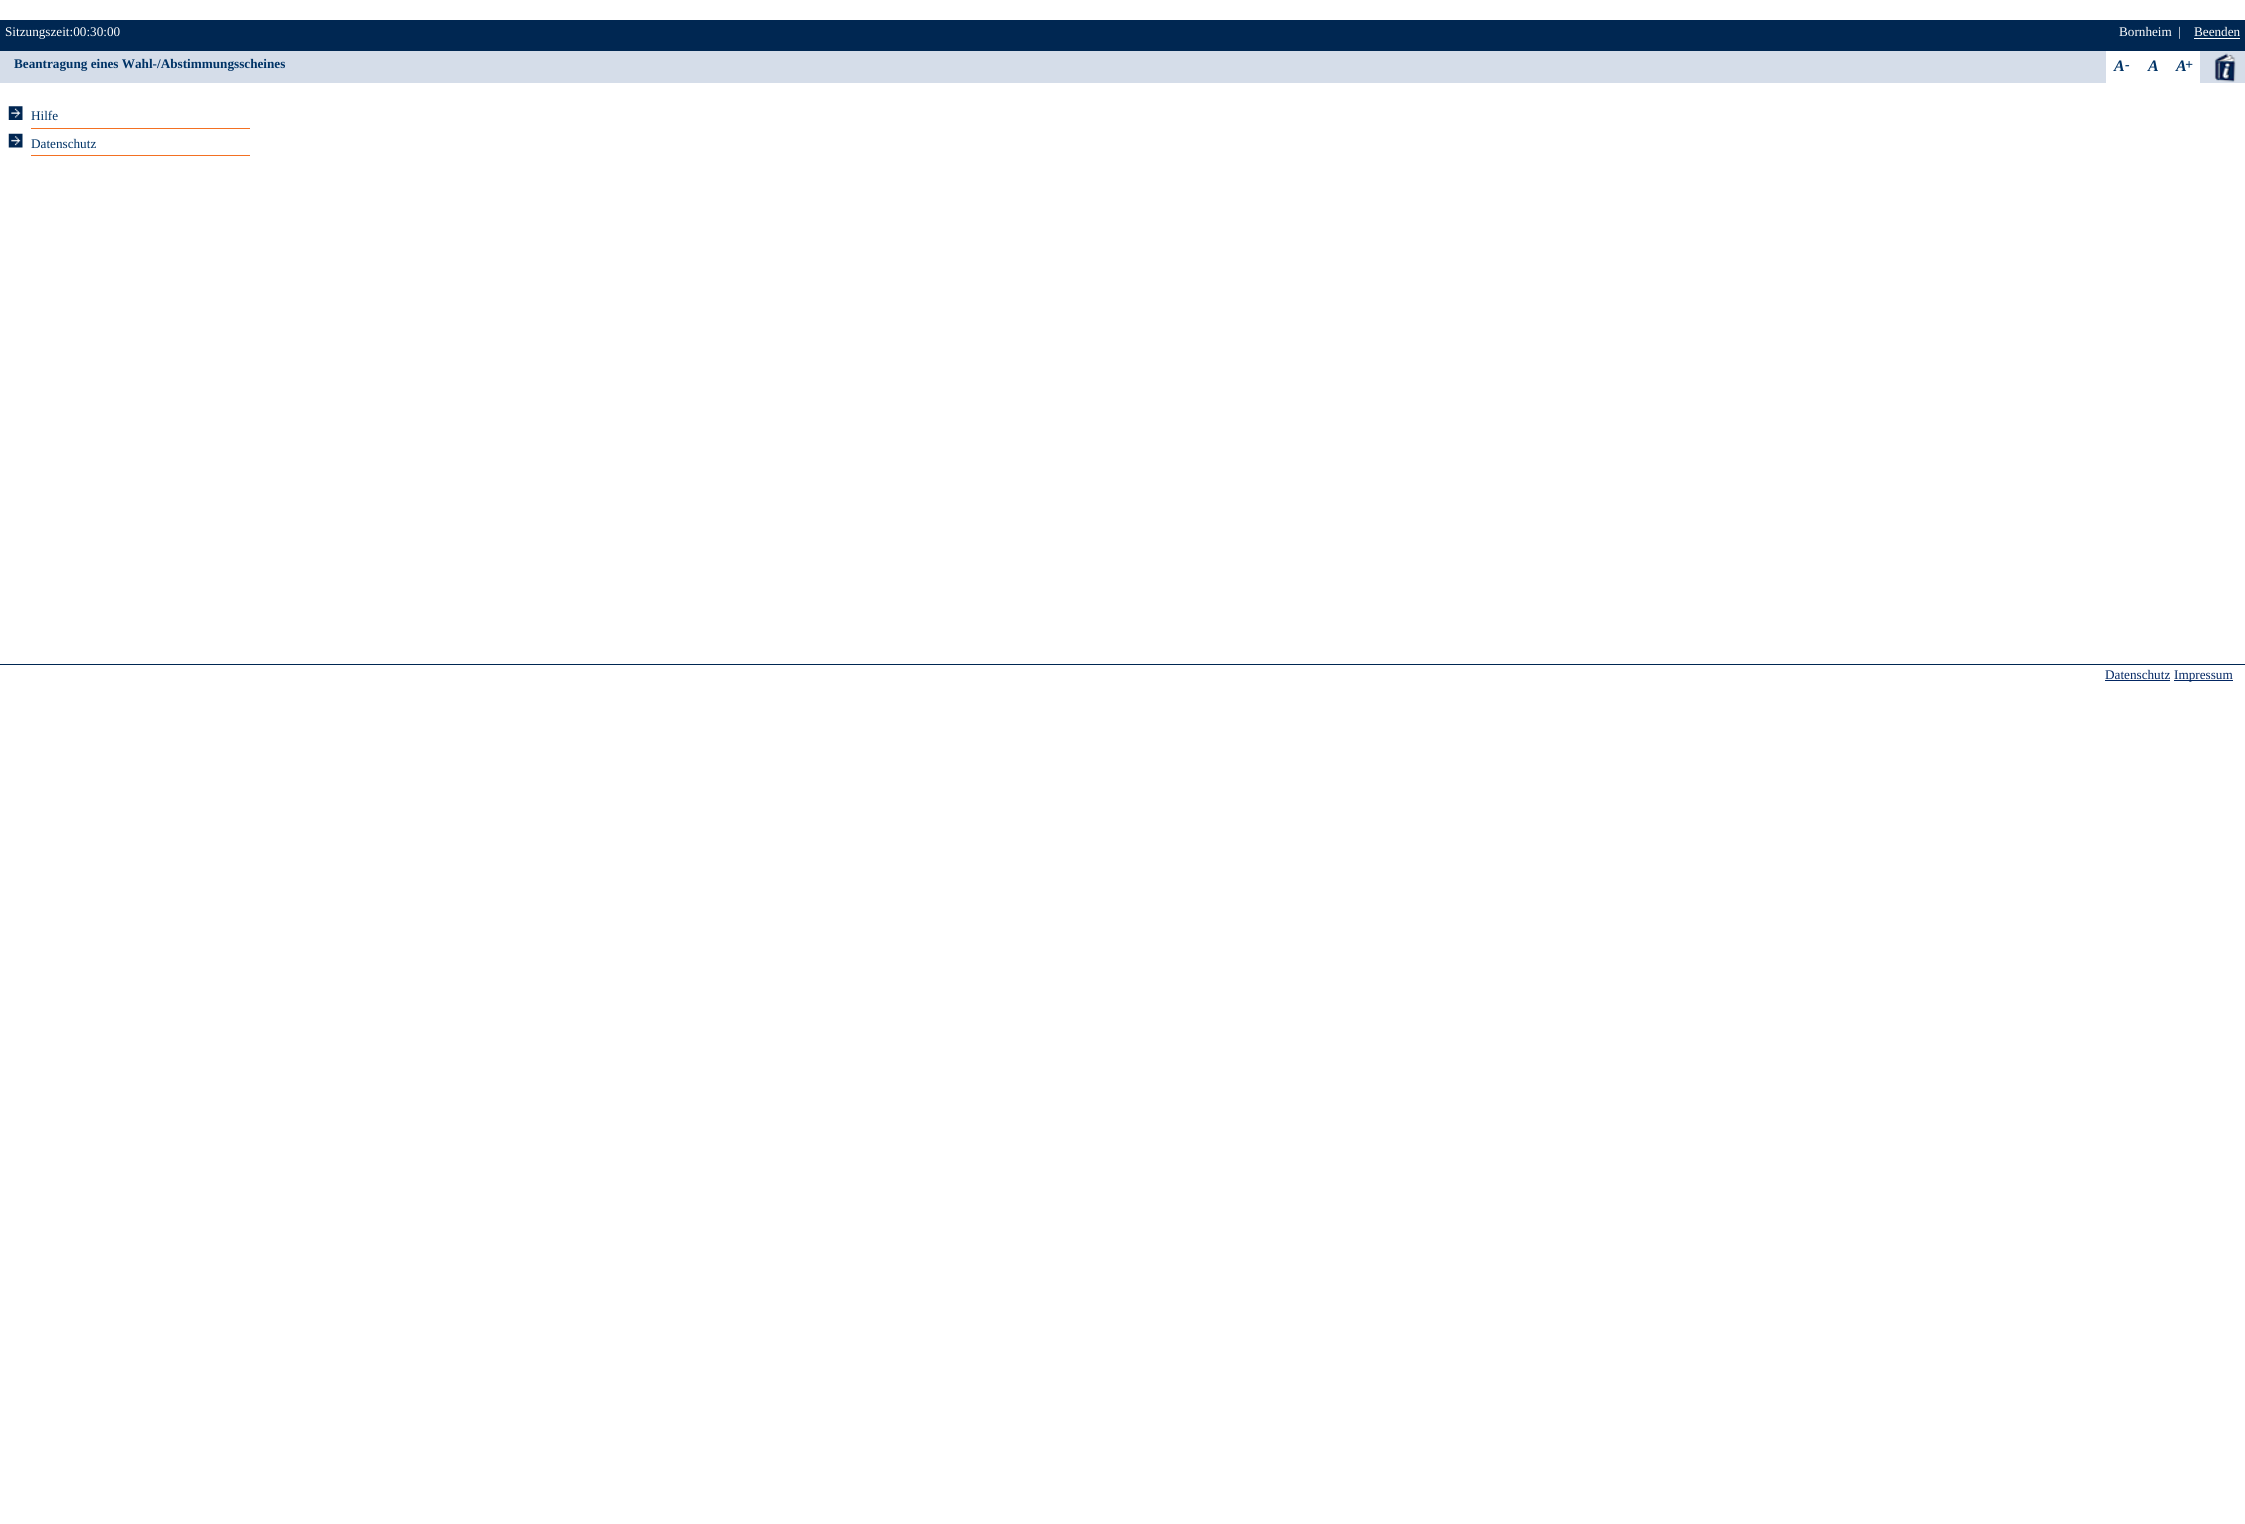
#include <cairo.h>
#include <math.h>
#include <stddef.h>


static void rgb(cairo_t *cr, int r, int g, int b)
{
	cairo_set_source_rgb(cr, r / 255.0, g / 255.0, b / 255.0);
}

static void face(cairo_t *cr, const char *family, double size, int italic, int bold)
{
	cairo_select_font_face(cr, family, italic ? CAIRO_FONT_SLANT_ITALIC : CAIRO_FONT_SLANT_NORMAL,
		bold ? CAIRO_FONT_WEIGHT_BOLD : CAIRO_FONT_WEIGHT_NORMAL);
	cairo_set_font_size(cr, size);
}

static void label(cairo_t *cr, double x, double y, const char *s)
{
	cairo_move_to(cr, x, y);
	cairo_show_text(cr, s);
}

static void rect(cairo_t *cr, double x, double y, double w, double h)
{
	cairo_rectangle(cr, x, y, w, h);
	cairo_fill(cr);
}

static void image(cairo_t *cr, const char *path, double x, double y, double w, double h)
{
	cairo_surface_t *image = cairo_image_surface_create_from_png(path);
	cairo_save(cr);
	cairo_set_source_surface(cr, image, x, y);
	cairo_rectangle(cr, x, y, w, h);
	cairo_fill(cr);
	cairo_restore(cr);
	cairo_surface_destroy(image);
}

static void draw(cairo_t *cr) {
	rgb(cr, 255, 255, 255);
	cairo_paint(cr);
	rgb(cr, 0, 39, 82);
	rect(cr, 0, 20, 2245, 31);
	face(cr, "Liberation Serif", 13.2, 0, 0);
	rgb(cr, 255, 255, 255);
	label(cr, 5, 36, "Sitzungszeit:00:30:00");
	label(cr, 2119, 36, "Bornheim");
	label(cr, 2178, 36, "|");
	label(cr, 2194, 36, "Beenden");
	rect(cr, 2194, 38, 46, 1);
	rgb(cr, 213, 221, 233);
	rect(cr, 0, 51, 2245, 32);
	face(cr, "Liberation Serif", 13.2, 0, 1);
	rgb(cr, 0, 51, 102);
	label(cr, 14, 68, "Beantragung eines Wahl-/Abstimmungsscheines");
	rgb(cr, 255, 255, 255);
	rect(cr, 2106, 51, 94, 32);
	face(cr, "Liberation Serif", 16, 1, 1);
	rgb(cr, 0, 51, 102);
	label(cr, 2114, 71, "A");
	face(cr, "Liberation Serif", 14, 1, 1);
	label(cr, 2125, 69, "-");
	face(cr, "Liberation Serif", 16, 1, 1);
	label(cr, 2148, 71, "A");
	label(cr, 2176, 71, "A");
	face(cr, "Liberation Serif", 14, 1, 1);
	label(cr, 2185, 69, "+");
	image(cr, "image0.png", 2214, 53, 22, 29);
	rgb(cr, 243, 112, 34);
	rect(cr, 31, 128, 219, 1);
	image(cr, "image1.png", 8, 106, 15, 14);
	face(cr, "Liberation Serif", 13.2, 0, 0);
	rgb(cr, 0, 51, 102);
	label(cr, 31, 120, "Hilfe");
	rgb(cr, 243, 112, 34);
	rect(cr, 31, 155, 219, 1);
	image(cr, "image2.png", 8, 133, 15, 15);
	rgb(cr, 0, 51, 102);
	label(cr, 31, 148, "Datenschutz");
	rgb(cr, 0, 39, 82);
	rect(cr, 0, 664, 2245, 1);
	rgb(cr, 3, 39, 99);
	label(cr, 2105, 679, "Datenschutz");
	rect(cr, 2105, 680, 65, 1);
	rect(cr, 2174, 680, 59, 1);
	label(cr, 2174, 679, "Impressum");
}

int main(void) {
	cairo_surface_t *surface = cairo_image_surface_create(CAIRO_FORMAT_RGB24, 2245, 1524);
	cairo_t *cr = cairo_create(surface);
	cairo_font_options_t *options = cairo_font_options_create();
	cairo_font_options_set_hint_metrics(options, CAIRO_HINT_METRICS_OFF);
	cairo_font_options_set_hint_style(options, CAIRO_HINT_STYLE_NONE);
	cairo_set_font_options(cr, options);
	cairo_set_miter_limit(cr, 4);
	draw(cr);
	cairo_surface_write_to_png(surface, "render.png");
	cairo_font_options_destroy(options);
	cairo_destroy(cr);
	cairo_surface_destroy(surface);
	return 0;
}
